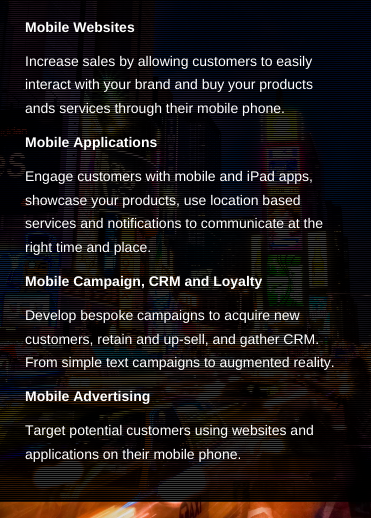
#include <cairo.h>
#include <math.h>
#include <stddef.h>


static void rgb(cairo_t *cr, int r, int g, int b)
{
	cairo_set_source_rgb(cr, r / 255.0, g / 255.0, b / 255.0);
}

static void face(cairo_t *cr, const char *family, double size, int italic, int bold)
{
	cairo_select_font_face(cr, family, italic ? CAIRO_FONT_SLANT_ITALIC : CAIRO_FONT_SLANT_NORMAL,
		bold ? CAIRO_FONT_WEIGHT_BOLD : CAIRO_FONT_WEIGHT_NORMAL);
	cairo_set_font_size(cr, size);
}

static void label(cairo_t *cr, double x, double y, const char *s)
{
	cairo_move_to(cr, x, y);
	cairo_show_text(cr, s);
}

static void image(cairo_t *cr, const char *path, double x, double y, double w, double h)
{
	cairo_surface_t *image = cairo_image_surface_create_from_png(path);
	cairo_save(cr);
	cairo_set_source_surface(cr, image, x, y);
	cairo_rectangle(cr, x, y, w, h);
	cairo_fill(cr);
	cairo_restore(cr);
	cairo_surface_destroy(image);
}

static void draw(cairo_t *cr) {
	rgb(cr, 255, 255, 255);
	cairo_paint(cr);
	image(cr, "image0.png", 0, 1, 371, 517);
	image(cr, "image1.png", 0, 0, 371, 502);
	face(cr, "Liberation Sans", 14, 0, 1);
	rgb(cr, 255, 255, 255);
	label(cr, 25, 32, "Mobile Websites");
	face(cr, "Liberation Sans", 14, 0, 0);
	label(cr, 25, 66, "Increase sales by allowing customers to easily");
	label(cr, 25, 89, "interact with your brand and buy your products");
	label(cr, 25, 113, "ands services through their mobile phone.");
	face(cr, "Liberation Sans", 14, 0, 1);
	label(cr, 25, 147, "Mobile Applications");
	face(cr, "Liberation Sans", 14, 0, 0);
	label(cr, 25, 181, "Engage customers with mobile and iPad apps,");
	label(cr, 25, 205, "showcase your products, use location based");
	label(cr, 25, 228, "services and notifications to communicate at the");
	label(cr, 25, 252, "right time and place.");
	face(cr, "Liberation Sans", 14, 0, 1);
	label(cr, 25, 286, "Mobile Campaign, CRM and Loyalty");
	face(cr, "Liberation Sans", 14, 0, 0);
	label(cr, 25, 320, "Develop bespoke campaigns to acquire new");
	label(cr, 25, 344, "customers, retain and up-sell, and gather CRM.");
	label(cr, 25, 367, "From simple text campaigns to augmented reality.");
	face(cr, "Liberation Sans", 14, 0, 1);
	label(cr, 25, 401, "Mobile Advertising");
	face(cr, "Liberation Sans", 14, 0, 0);
	label(cr, 25, 435, "Target potential customers using websites and");
	label(cr, 25, 459, "applications on their mobile phone.");
}

int main(void) {
	cairo_surface_t *surface = cairo_image_surface_create(CAIRO_FORMAT_RGB24, 371, 518);
	cairo_t *cr = cairo_create(surface);
	cairo_font_options_t *options = cairo_font_options_create();
	cairo_font_options_set_hint_metrics(options, CAIRO_HINT_METRICS_OFF);
	cairo_font_options_set_hint_style(options, CAIRO_HINT_STYLE_NONE);
	cairo_set_font_options(cr, options);
	cairo_set_miter_limit(cr, 4);
	draw(cr);
	cairo_surface_write_to_png(surface, "render.png");
	cairo_font_options_destroy(options);
	cairo_destroy(cr);
	cairo_surface_destroy(surface);
	return 0;
}
